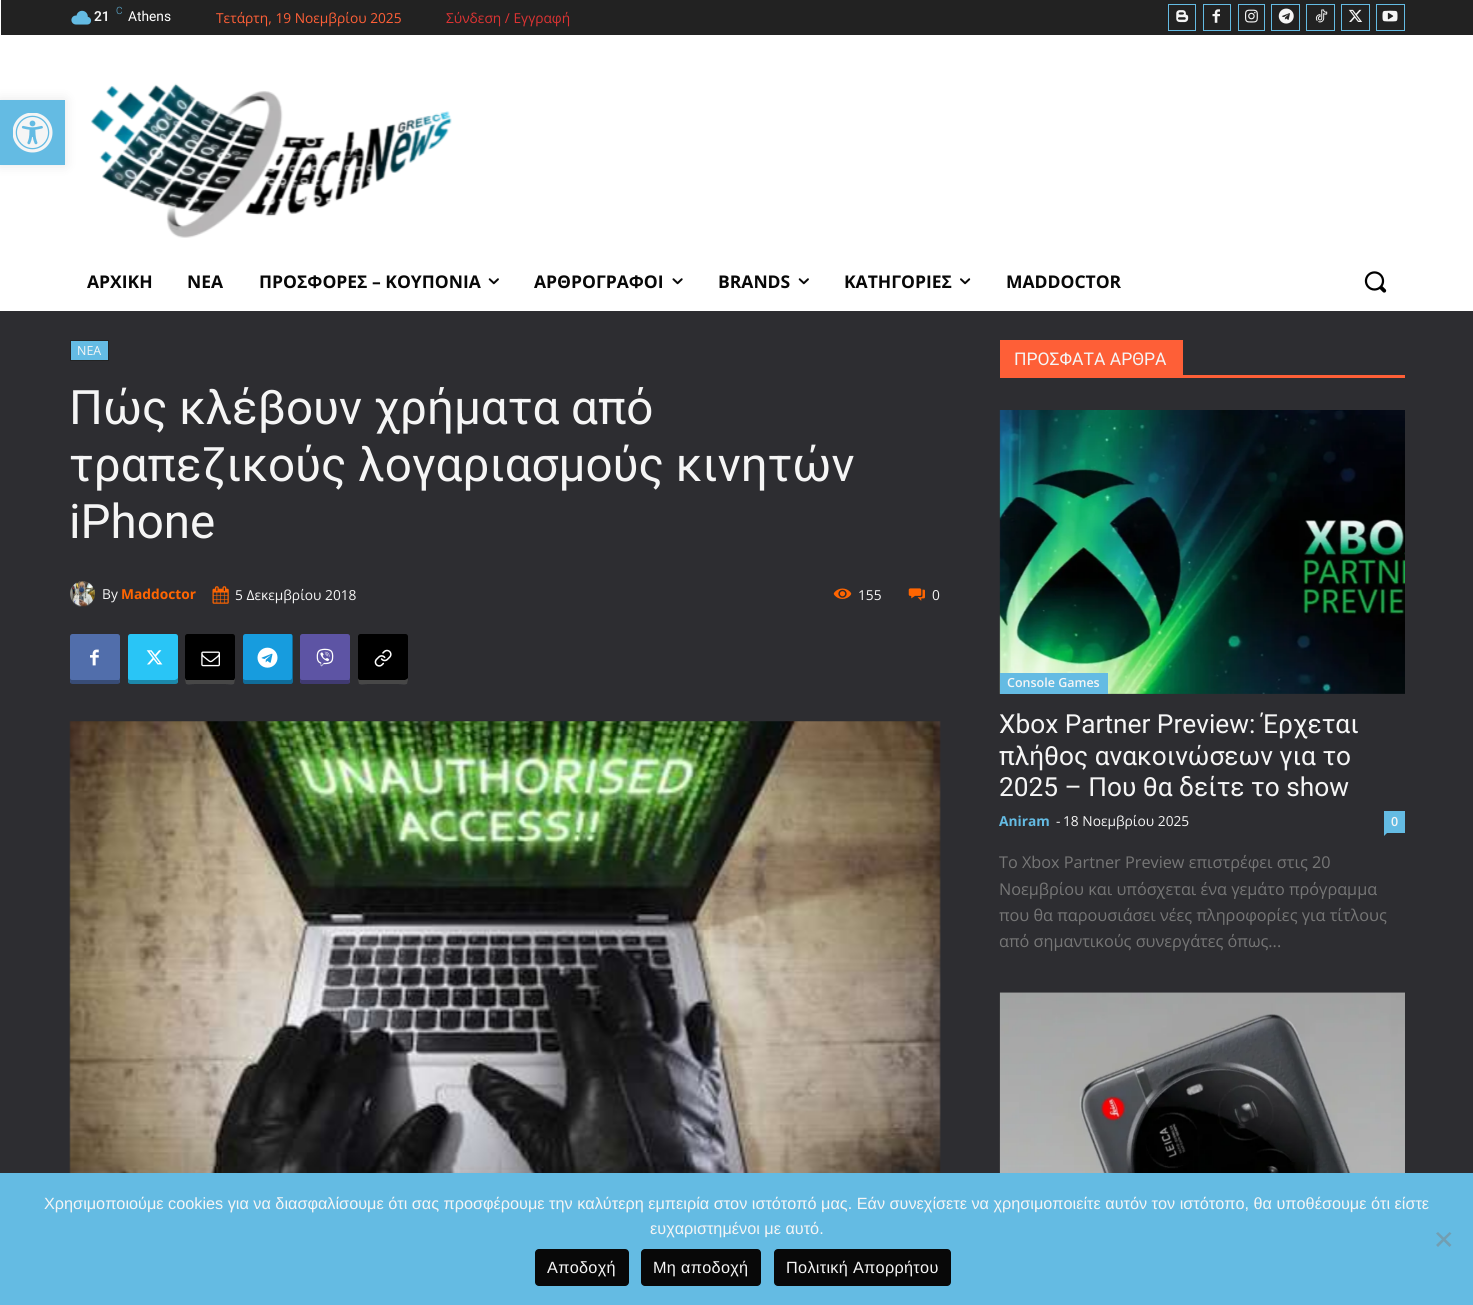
import math
import cairocffi as cairo

surface = cairo.ImageSurface(cairo.FORMAT_RGB24, 1473, 1305)
ctx = cairo.Context(surface)
options = cairo.FontOptions()
options.set_hint_metrics(cairo.HINT_METRICS_OFF)
options.set_hint_style(cairo.HINT_STYLE_NONE)
ctx.set_font_options(options)
ctx.set_miter_limit(4)


def rgb(r, g, b):
    ctx.set_source_rgb(r / 255, g / 255, b / 255)


def face(family, size, italic, bold):
    ctx.select_font_face(family, cairo.FONT_SLANT_ITALIC if italic else cairo.FONT_SLANT_NORMAL, cairo.FONT_WEIGHT_BOLD if bold else cairo.FONT_WEIGHT_NORMAL)
    ctx.set_font_size(size)


def label(x, y, s):
    ctx.move_to(x, y)
    ctx.show_text(s)


def tracked(x, y, s, letter, word):
    ctx.move_to(x, y)
    for ch in s:
        ctx.show_text(ch)
        ctx.rel_move_to(letter + word * (ch == ' '), 0)


def rect(x, y, w, h):
    ctx.rectangle(x, y, w, h)
    ctx.fill()


def rrect(x, y, w, h, r):
    ctx.new_sub_path()
    for i, (u, v) in enumerate([(x + w - r, y + h - r), (x + r, y + h - r), (x + r, y + r), (x + w - r, y + r)]):
        ctx.arc(u, v, r, i * math.pi / 2, (i + 1) * math.pi / 2)
    ctx.close_path()


def soft_shadow(x, y, w, h, r, blur, alpha):
    ctx.push_group_with_content(cairo.CONTENT_ALPHA)
    ctx.set_operator(cairo.OPERATOR_SOURCE)
    for i in range(15, -16, -2):
        e = blur * i / 6
        if min(w, h) + 2 * e > 0:
            ctx.set_source_rgba(0, 0, 0, alpha * math.erfc((i - 1) / 8.5) / 2)
            rrect(x - e, y - e, w + 2 * e, h + 2 * e, max(0, min(r + e + blur * .6, min(w, h) / 2 + e)))
            ctx.fill()
    ctx.mask(ctx.pop_group())


def image(path, x, y, w, h):
    ctx.save()
    ctx.set_source_surface(cairo.ImageSurface.create_from_png(path), x, y)
    ctx.rectangle(x, y, w, h)
    ctx.fill()
    ctx.restore()


rgb(45, 45, 49)
ctx.paint()
rgb(255, 255, 255)
rect(0, 0, 1473, 311)
rgb(0, 0, 0)
soft_shadow(0, 100, 65, 65, 0, 6, 0.1)
rgb(100, 187, 227)
rect(0, 100, 65, 65)
image('image0.png', 13, 113, 40, 40)
rgb(34, 34, 34)
rect(1, 0, 1472, 35)
image('image1.png', 71, 10, 21, 15)
face('Roboto SemiBold', 13.75, 0, 0)
rgb(245, 245, 245)
label(94, 21, '21')
face('Roboto Light', 10, 0, 0)
rgb(100, 187, 227)
label(116, 14, 'C')
face('Roboto', 13.75, 0, 0)
rgb(255, 255, 255)
label(128, 21, 'Athens')
face('Open Sans', 13.75, 0, 0)
rgb(254, 95, 55)
label(216, 23, 'Τετάρτη, 19 Νοεμβρίου 2025')
rgb(221, 51, 51)
label(446, 23, 'Σύνδεση / Εγγραφή')
ctx.rectangle(1168.5, 4.5, 27, 26)
rgb(100, 187, 227)
ctx.set_line_width(1)
ctx.stroke()
image('image2.png', 1176, 10, 13, 13)
ctx.rectangle(1203.5, 4.5, 27, 26)
ctx.stroke()
image('image3.png', 1212, 9, 8, 14)
ctx.rectangle(1238.5, 4.5, 26, 26)
ctx.stroke()
image('image4.png', 1245, 9, 13, 14)
ctx.rectangle(1271.5, 4.5, 28, 26)
ctx.stroke()
image('image5.png', 1278, 8, 16, 16)
ctx.rectangle(1306.5, 4.5, 28, 26)
ctx.stroke()
image('image6.png', 1315, 9, 13, 14)
ctx.rectangle(1341.5, 4.5, 28, 26)
ctx.stroke()
image('image7.png', 1348, 9, 15, 13)
ctx.rectangle(1376.5, 4.5, 28, 26)
ctx.stroke()
image('image8.png', 1382, 10, 16, 12)
image('image9.png', 90, 83, 362, 155)
face('Open Sans', 17.5, 0, 1)
rgb(8, 8, 8)
label(87, 288, 'ΑΡΧΙΚΗ')
label(187, 288, 'ΝΕΑ')
label(259, 288, 'ΠΡΟΣΦΟΡΕΣ – ΚΟΥΠΟΝΙΑ')
image('image10.png', 488, 278, 11, 7)
label(534, 288, 'ΑΡΘΡΟΓΡΑΦΟΙ')
image('image11.png', 672, 278, 11, 7)
label(718, 288, 'BRANDS')
image('image10.png', 798, 278, 11, 7)
label(844, 288, 'ΚΑΤΗΓΟΡΙΕΣ')
image('image12.png', 960, 278, 11, 7)
label(1006, 288, 'MADDOCTOR')
image('image13.png', 1364, 271, 23, 22)
rgb(100, 187, 227)
ctx.rectangle(70.5, 340.5, 38, 20)
ctx.fill_preserve()
rgb(34, 34, 34)
ctx.stroke()
face('Open Sans', 12.5, 0, 0)
rgb(245, 245, 245)
label(77, 355, 'ΝΕΑ')
face('Roboto', 47.5, 0, 0)
label(69, 424, 'Πώς κλέβουν χρήματα από')
label(69, 481, 'τραπεζικούς λογαριασμούς κινητών')
label(69, 538, 'iPhone')
image('image14.png', 70, 581, 25, 26)
face('Open Sans', 13.75, 0, 0)
label(102, 599, 'By')
face('Open Sans', 13.75, 0, 1)
rgb(255, 101, 1)
label(121, 599, 'Maddoctor')
image('image15.png', 212, 586, 17, 18)
face('Open Sans', 13.75, 0, 0)
rgb(245, 245, 245)
label(235, 600, '5 Δεκεμβρίου 2018')
image('image16.png', 833, 588, 19, 11)
label(858, 600, '155')
image('image17.png', 908, 588, 17, 13)
label(932, 600, '0')
rgb(81, 110, 171)
rrect(70, 634, 50, 50, 2.5)
ctx.fill()
ctx.save()
ctx.rectangle(70, 634, 50, 50)
ctx.clip()
ctx.set_source_rgba(0, 0, 0, 0.31)
ctx.new_path()
ctx.move_to(70, 678)
ctx.curve_to(70, 686, 71, 684, 80, 684)
ctx.line_to(110, 684)
ctx.curve_to(119, 684, 120, 686, 120, 678)
ctx.line_to(119, 680)
ctx.line_to(72, 680)
ctx.curve_to(71, 680, 70, 679, 70, 678)
ctx.close_path()
ctx.fill()
ctx.restore()
image('image18.png', 90, 649, 9, 17)
rgb(41, 197, 246)
rrect(128, 634, 50, 50, 2.5)
ctx.fill()
ctx.save()
ctx.rectangle(128, 634, 50, 50)
ctx.clip()
ctx.set_source_rgba(0, 0, 0, 0.31)
ctx.new_path()
ctx.move_to(128, 678)
ctx.curve_to(128, 686, 129, 684, 138, 684)
ctx.line_to(168, 684)
ctx.curve_to(177, 684, 178, 686, 178, 678)
ctx.line_to(177, 679)
ctx.line_to(175, 680)
ctx.line_to(130, 680)
ctx.curve_to(129, 680, 128, 679, 128, 678)
ctx.close_path()
ctx.fill()
ctx.restore()
image('image19.png', 146, 650, 17, 15)
rgb(0, 0, 0)
rrect(185, 634, 50, 50, 2.5)
ctx.fill()
ctx.set_source_rgba(1, 1, 1, 0.28)
ctx.new_path()
ctx.move_to(185, 678)
ctx.curve_to(185, 686, 186, 684, 195, 684)
ctx.line_to(225, 684)
ctx.curve_to(234, 684, 235, 686, 235, 678)
ctx.line_to(234, 680)
ctx.curve_to(232, 680, 188, 680, 186, 680)
ctx.close_path()
ctx.fill()
image('image20.png', 201, 651, 19, 16)
rgb(23, 156, 222)
rrect(243, 634, 50, 50, 2.5)
ctx.fill()
ctx.set_source_rgba(0, 0, 0, 0.31)
ctx.new_path()
ctx.move_to(243, 679)
ctx.line_to(243, 682)
ctx.curve_to(243, 683, 244, 684, 246, 684)
ctx.line_to(290, 684)
ctx.curve_to(292, 684, 293, 683, 293, 682)
ctx.line_to(293, 636)
ctx.curve_to(293, 636, 293, 635, 292, 634)
ctx.line_to(292, 678)
ctx.curve_to(292, 679, 291, 680, 290, 680)
ctx.line_to(245, 680)
ctx.close_path()
ctx.fill()
image('image21.png', 257, 647, 21, 21)
rgb(93, 84, 164)
rrect(300, 634, 50, 50, 2.5)
ctx.fill()
ctx.save()
ctx.rectangle(300, 634, 50, 50)
ctx.clip()
ctx.set_source_rgba(0, 0, 0, 0.31)
ctx.new_path()
ctx.move_to(300, 678)
ctx.curve_to(300, 686, 301, 684, 310, 684)
ctx.line_to(340, 684)
ctx.curve_to(349, 684, 350, 686, 350, 678)
ctx.line_to(349, 680)
ctx.line_to(302, 680)
ctx.curve_to(301, 680, 300, 679, 300, 678)
ctx.close_path()
ctx.fill()
ctx.restore()
image('image22.png', 316, 648, 18, 19)
rgb(0, 0, 0)
rrect(358, 634, 50, 50, 2.5)
ctx.fill()
ctx.set_source_rgba(1, 1, 1, 0.28)
ctx.new_path()
ctx.move_to(358, 678)
ctx.curve_to(358, 686, 359, 684, 368, 684)
ctx.line_to(398, 684)
ctx.curve_to(407, 684, 408, 686, 408, 678)
ctx.line_to(407, 679)
ctx.line_to(405, 680)
ctx.line_to(360, 680)
ctx.curve_to(359, 680, 358, 679, 358, 678)
ctx.close_path()
ctx.fill()
image('image23.png', 374, 649, 18, 18)
image('image24.png', 69, 721, 872, 452)
rgb(254, 95, 55)
rect(1000, 375, 405, 3)
rect(1000, 340, 183, 35)
face('Roboto', 17.5, 0, 0)
rgb(245, 245, 245)
label(1014, 365, 'ΠΡΟΣΦΑΤΑ ΑΡΘΡΑ')
image('image25.png', 999, 410, 406, 284)
rgb(100, 187, 227)
rect(1000, 673, 108, 21)
face('Open Sans SemiBold', 12.5, 0, 0)
rgb(245, 245, 245)
label(1007, 687, 'Console Games')
face('Roboto', 26.25, 0, 0)
label(999, 733, 'Xbox Partner Preview: Έρχεται')
label(999, 765, 'πλήθος ανακοινώσεων για το')
label(999, 796, '2025 – Που θα δείτε το show')
face('Open Sans', 13.75, 0, 1)
rgb(100, 187, 227)
label(999, 826, 'Aniram')
face('Open Sans', 13.75, 0, 0)
rgb(245, 245, 245)
label(1056, 826, '-')
label(1063, 826, '18 Νοεμβρίου 2025')
rgb(100, 187, 227)
rect(1384, 811, 21, 22)
face('Open Sans SemiBold', 12.5, 0, 0)
rgb(245, 245, 245)
label(1391, 826, '0')
rgb(100, 187, 227)
ctx.new_path()
ctx.move_to(1384, 832.5)
ctx.line_to(1387.5, 832.5)
ctx.line_to(1384, 836)
ctx.close_path()
ctx.fill()
face('Open Sans', 16.25, 0, 0)
rgb(118, 118, 118)
label(999, 868, 'Το Xbox Partner Preview επιστρέφει στις 20')
label(999, 895, 'Νοεμβρίου και υπόσχεται ένα γεμάτο πρόγραμμα')
label(999, 921, 'που θα παρουσιάσει νέες πληροφορίες για τίτλους')
label(999, 947, 'από σημαντικούς συνεργάτες όπως...')
image('image26.png', 999, 992, 406, 181)
rgb(100, 187, 227)
rect(0, 1173, 1473, 132)
face('Liberation Sans', 16.25, 0, 0)
rgb(245, 245, 245)
label(44, 1209, 'Χρησιμοποιούμε cookies για να διασφαλίσουμε ότι σας προσφέρουμε την καλύτερη εμπειρία στον ιστότοπό μας. Εάν συνεχίσετε να χρησιμοποιείτε αυτόν τον ιστότοπο, θα υποθέσουμε ότι είστε')
label(650, 1234, 'ευχαριστημένοι με αυτό.')
rgb(114, 158, 178)
ctx.new_path()
ctx.move_to(1449.5, 1232)
ctx.line_to(1451.5, 1233.5)
ctx.line_to(1438, 1247)
ctx.line_to(1436, 1245)
ctx.close_path()
ctx.fill()
ctx.new_path()
ctx.move_to(1436, 1233.5)
ctx.line_to(1438, 1232)
ctx.line_to(1451.5, 1245)
ctx.line_to(1449.5, 1247)
ctx.close_path()
ctx.fill()
rgb(8, 8, 8)
rrect(535, 1249, 94, 37, 4)
ctx.fill()
rgb(245, 245, 245)
tracked(547, 1273, 'Αποδοχή', 0.3, 0)
rgb(8, 8, 8)
rrect(641, 1249, 120, 37, 4)
ctx.fill()
rgb(245, 245, 245)
tracked(653, 1273, 'Μη αποδοχή', 0.3, 0)
rgb(8, 8, 8)
rrect(774, 1249, 177, 37, 4)
ctx.fill()
rgb(245, 245, 245)
tracked(786, 1273, 'Πολιτική Aπορρήτου', 0.3, 0)
surface.write_to_png('render.png')
